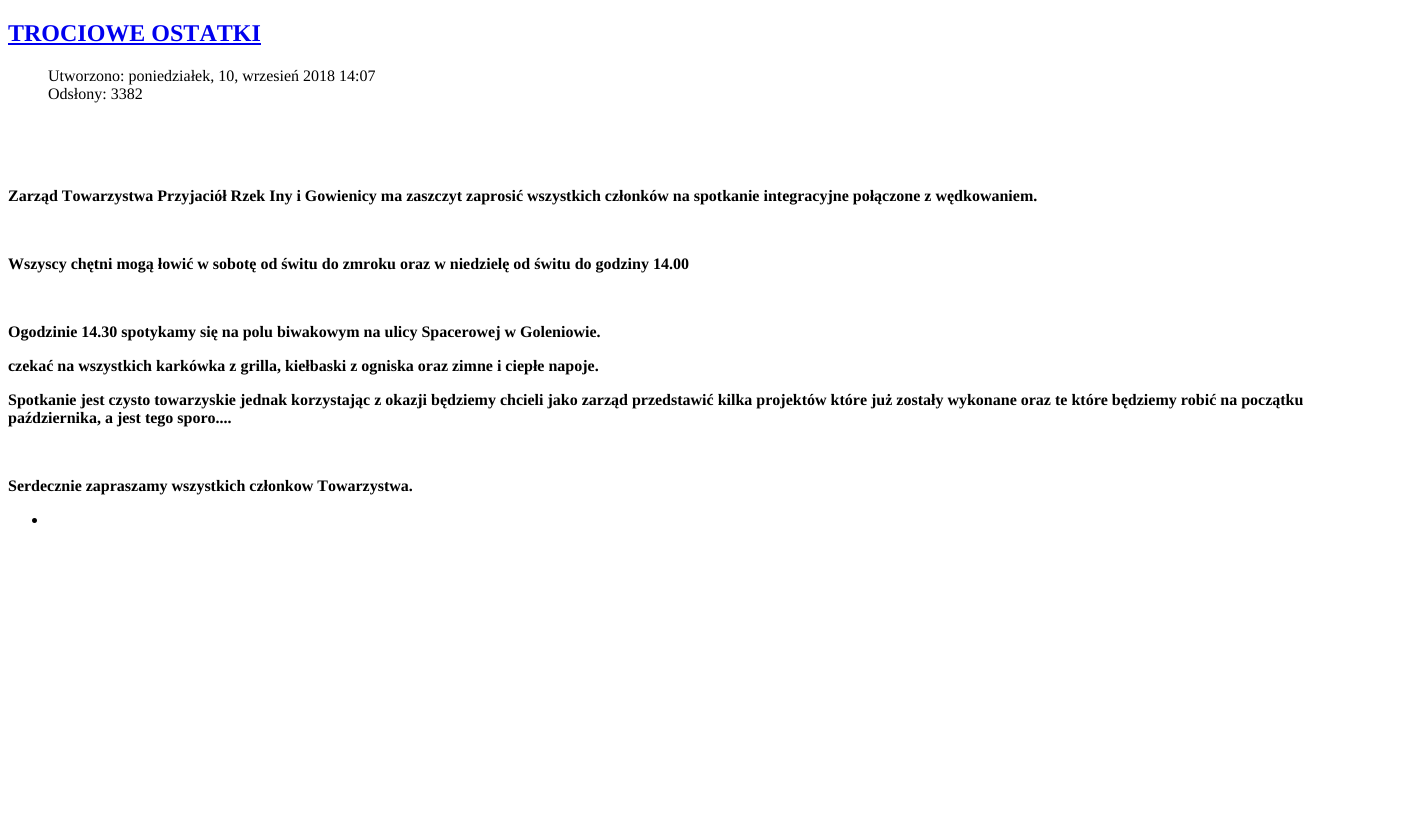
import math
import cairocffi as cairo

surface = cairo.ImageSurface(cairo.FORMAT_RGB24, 1402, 814)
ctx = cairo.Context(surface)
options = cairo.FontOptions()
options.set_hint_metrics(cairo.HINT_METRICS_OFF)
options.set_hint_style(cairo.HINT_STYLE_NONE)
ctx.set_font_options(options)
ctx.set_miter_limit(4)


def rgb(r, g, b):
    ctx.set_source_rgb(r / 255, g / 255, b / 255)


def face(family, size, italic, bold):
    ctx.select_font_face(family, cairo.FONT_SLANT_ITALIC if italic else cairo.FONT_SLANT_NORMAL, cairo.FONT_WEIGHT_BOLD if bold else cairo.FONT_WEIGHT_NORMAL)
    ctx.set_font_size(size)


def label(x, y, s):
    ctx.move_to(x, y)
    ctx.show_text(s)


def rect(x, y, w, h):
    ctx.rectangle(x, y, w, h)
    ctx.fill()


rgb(255, 255, 255)
ctx.paint()
face('Liberation Serif', 24, 0, 1)
rgb(0, 0, 238)
label(8, 41, 'TROCIOWE OSTATKI')
rect(8, 43, 253, 2)
face('Liberation Serif', 16, 0, 0)
rgb(0, 0, 0)
label(48, 81, 'Utworzono: poniedziałek, 10, wrzesień 2018 14:07')
label(48, 99, 'Odsłony: 3382')
face('Liberation Serif', 16, 0, 1)
label(8, 201, 'Zarząd Towarzystwa Przyjaciół Rzek Iny i Gowienicy ma zaszczyt zaprosić wszystkich członków na spotkanie integracyjne połączone z wędkowaniem.')
label(8, 269, 'Wszyscy chętni mogą łowić w sobotę od świtu do zmroku oraz w niedzielę od świtu do godziny 14.00')
label(8, 337, 'Ogodzinie 14.30 spotykamy się na polu biwakowym na ulicy Spacerowej w Goleniowie.')
label(8, 371, 'czekać na wszystkich karkówka z grilla, kiełbaski z ogniska oraz zimne i ciepłe napoje.')
label(8, 405, 'Spotkanie jest czysto towarzyskie jednak korzystając z okazji będziemy chcieli jako zarząd przedstawić kilka projektów które już zostały wykonane oraz te które będziemy robić na początku')
label(8, 423, 'października, a jest tego sporo....')
label(8, 491, 'Serdecznie zapraszamy wszystkich członkow Towarzystwa.')
ctx.new_path()
ctx.arc(34.5, 520.5, 2.5, 0, 2 * math.pi)
ctx.fill()
surface.write_to_png('render.png')
